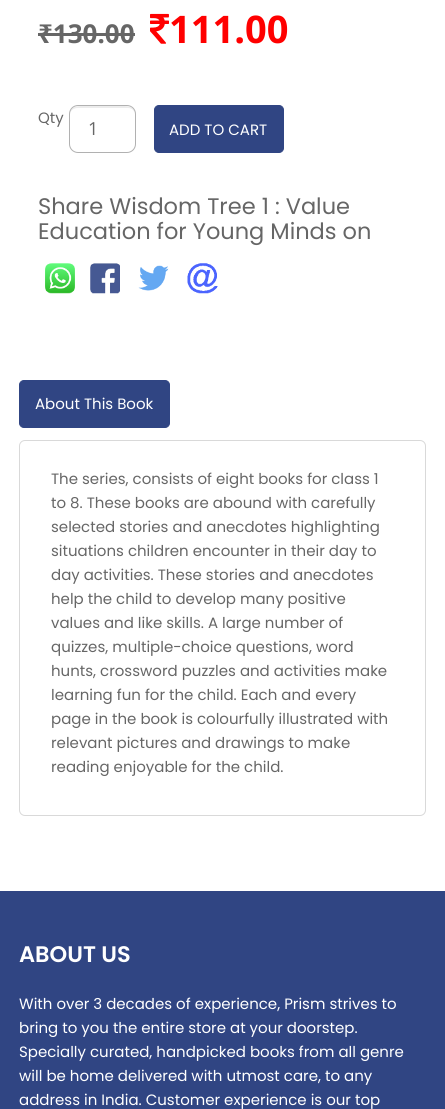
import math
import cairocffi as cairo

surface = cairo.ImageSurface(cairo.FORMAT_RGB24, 445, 1109)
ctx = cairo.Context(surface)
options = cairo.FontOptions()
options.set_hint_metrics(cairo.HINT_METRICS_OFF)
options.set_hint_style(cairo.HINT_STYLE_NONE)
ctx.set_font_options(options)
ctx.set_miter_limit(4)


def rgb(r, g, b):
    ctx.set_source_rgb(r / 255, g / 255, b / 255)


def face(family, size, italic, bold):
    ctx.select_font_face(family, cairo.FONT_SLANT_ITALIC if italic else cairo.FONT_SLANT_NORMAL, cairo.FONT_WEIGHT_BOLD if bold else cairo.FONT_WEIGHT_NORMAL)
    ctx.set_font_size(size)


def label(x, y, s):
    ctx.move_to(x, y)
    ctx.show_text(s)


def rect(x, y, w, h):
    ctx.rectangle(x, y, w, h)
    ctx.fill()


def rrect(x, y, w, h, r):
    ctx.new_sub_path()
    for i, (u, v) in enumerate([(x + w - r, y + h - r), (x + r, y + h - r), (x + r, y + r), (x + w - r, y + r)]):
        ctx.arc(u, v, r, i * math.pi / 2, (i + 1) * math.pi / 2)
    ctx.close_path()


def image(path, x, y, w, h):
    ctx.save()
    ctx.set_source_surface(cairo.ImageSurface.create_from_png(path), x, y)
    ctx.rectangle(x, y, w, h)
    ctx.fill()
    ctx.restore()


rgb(255, 255, 255)
ctx.paint()
face('Noto Sans', 26, 0, 1)
rgb(102, 102, 102)
label(38, 43, '₹130.00')
rect(38, 33, 97, 3)
image('image0.png', 150, 13, 19, 31)
face('Open Sans', 38, 0, 1)
rgb(255, 0, 0)
label(169, 43, '111.00')
face('Poppins', 15, 0, 0)
rgb(102, 102, 102)
label(38, 123, 'Qty')
rgb(236, 236, 236)
ctx.new_path()
ctx.move_to(78, 108)
ctx.line_to(128, 108)
ctx.curve_to(132, 108, 135, 111, 135, 115)
ctx.curve_to(135, 105, 126, 106, 119, 106)
ctx.line_to(86, 106)
ctx.curve_to(79, 106, 70, 105, 70, 115)
ctx.curve_to(70, 111, 73, 108, 78, 108)
ctx.close_path()
ctx.fill()
rrect(69.5, 105.5, 66, 47, 8.5)
rgb(177, 177, 177)
ctx.set_line_width(1)
ctx.stroke()
face('Open Sans', 18, 0, 0)
rgb(102, 102, 102)
label(88, 135, '1')
rgb(48, 69, 131)
rrect(154.5, 105.5, 129, 47, 4.5)
ctx.fill_preserve()
ctx.stroke()
face('Poppins', 15, 0, 0)
rgb(255, 255, 255)
label(169, 135, 'ADD TO CART')
face('Poppins', 22.5, 0, 0)
rgb(102, 102, 102)
label(38, 214, 'Share Wisdom Tree 1 : Value')
label(38, 239, 'Education for Young Minds on')
image('image1.png', 45, 263, 30, 31)
image('image2.png', 90, 263, 30, 31)
image('image3.png', 138, 265, 31, 26)
image('image4.png', 187, 263, 31, 31)
rgb(48, 69, 131)
rrect(19.5, 380.5, 150, 47, 4.5)
ctx.fill_preserve()
ctx.stroke()
face('Poppins', 15, 0, 0)
rgb(255, 255, 255)
label(35, 409, 'About This Book')
rrect(19.5, 440.5, 406, 375, 5.5)
rgb(217, 217, 217)
ctx.stroke()
rgb(102, 102, 102)
label(51, 484, 'The series, consists of eight books for class 1')
label(51, 508, 'to 8. These books are abound with carefully')
label(51, 532, 'selected stories and anecdotes highlighting')
label(51, 556, 'situations children encounter in their day to')
label(51, 580, 'day activities. These stories and anecdotes')
label(51, 604, 'help the child to develop many positive')
label(51, 628, 'values and like skills. A large number of')
label(51, 652, 'quizzes, multiple-choice questions, word')
label(51, 676, 'hunts, crossword puzzles and activities make')
label(51, 700, 'learning fun for the child. Each and every')
label(51, 724, 'page in the book is colourfully illustrated with')
label(51, 748, 'relevant pictures and drawings to make')
label(51, 772, 'reading enjoyable for the child.')
rgb(48, 69, 131)
rect(0, 891, 445, 218)
face('Poppins SemiBold', 22.5, 0, 0)
rgb(255, 255, 255)
label(19, 962, 'ABOUT US')
face('Poppins', 15, 0, 0)
label(19, 1009, 'With over 3 decades of experience, Prism strives to')
label(19, 1033, 'bring to you the entire store at your doorstep.')
label(19, 1057, 'Specially curated, handpicked books from all genre')
label(19, 1081, 'will be home delivered with utmost care, to any')
label(19, 1105, 'address in India. Customer experience is our top')
surface.write_to_png('render.png')
